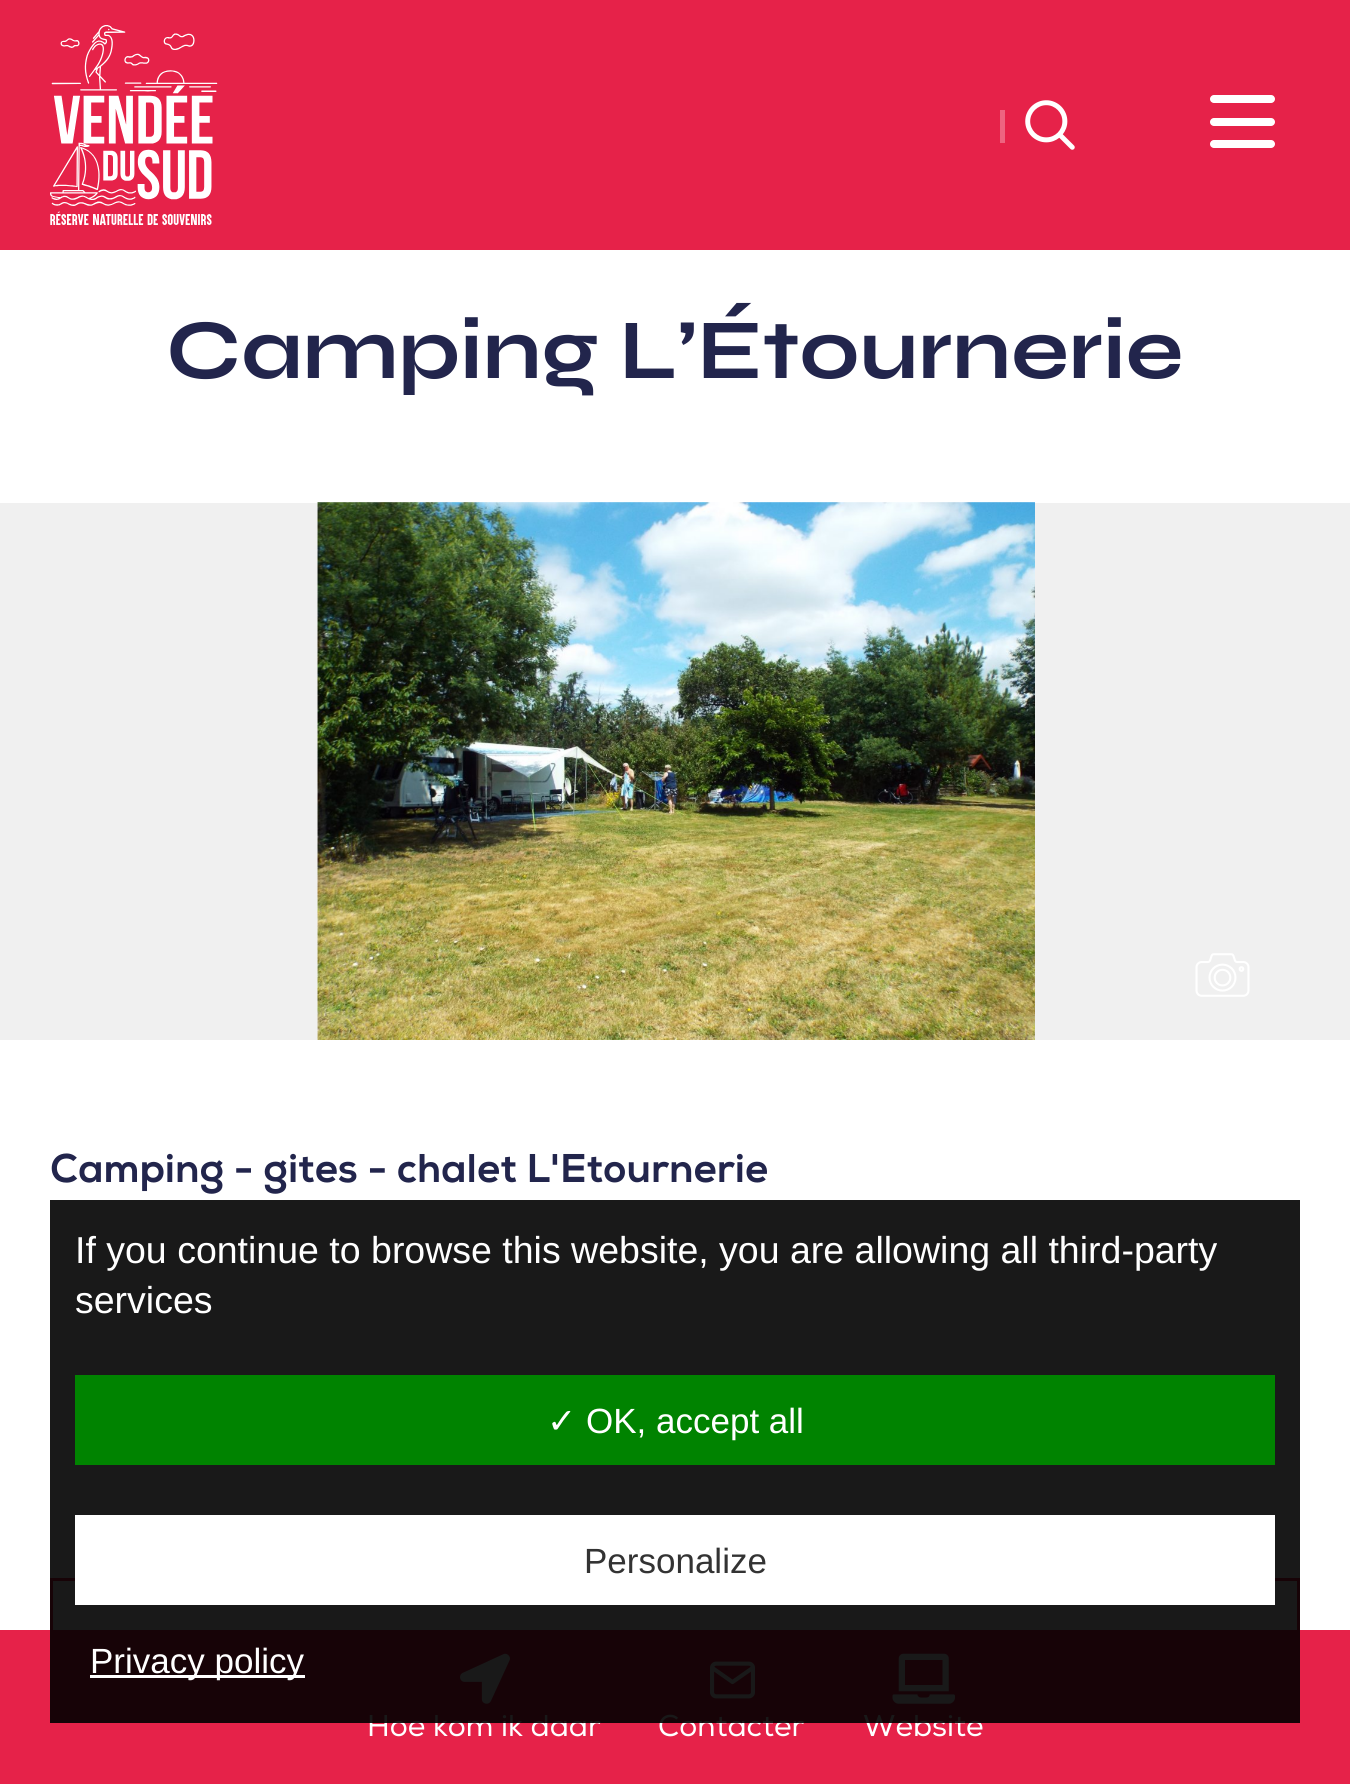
import math
import cairocffi as cairo

surface = cairo.ImageSurface(cairo.FORMAT_RGB24, 1350, 1784)
ctx = cairo.Context(surface)
options = cairo.FontOptions()
options.set_hint_metrics(cairo.HINT_METRICS_OFF)
options.set_hint_style(cairo.HINT_STYLE_NONE)
ctx.set_font_options(options)
ctx.set_miter_limit(4)


def rgb(r, g, b):
    ctx.set_source_rgb(r / 255, g / 255, b / 255)


def face(family, size, italic, bold):
    ctx.select_font_face(family, cairo.FONT_SLANT_ITALIC if italic else cairo.FONT_SLANT_NORMAL, cairo.FONT_WEIGHT_BOLD if bold else cairo.FONT_WEIGHT_NORMAL)
    ctx.set_font_size(size)


def label(x, y, s):
    ctx.move_to(x, y)
    ctx.show_text(s)


def rect(x, y, w, h):
    ctx.rectangle(x, y, w, h)
    ctx.fill()


def rrect(x, y, w, h, r):
    ctx.new_sub_path()
    for i, (u, v) in enumerate([(x + w - r, y + h - r), (x + r, y + h - r), (x + r, y + r), (x + w - r, y + r)]):
        ctx.arc(u, v, r, i * math.pi / 2, (i + 1) * math.pi / 2)
    ctx.close_path()


def image(path, x, y, w, h):
    ctx.save()
    ctx.set_source_surface(cairo.ImageSurface.create_from_png(path), x, y)
    ctx.rectangle(x, y, w, h)
    ctx.fill()
    ctx.restore()


rgb(255, 255, 255)
ctx.paint()
rgb(230, 34, 73)
rect(0, 0, 1350, 250)
image('image0.png', 50, 25, 168, 200)
rgb(238, 100, 128)
rect(1000, 110, 5, 33)
image('image1.png', 1025, 100, 50, 50)
rgb(255, 255, 255)
rrect(1210, 118, 65, 8, 4)
ctx.fill()
rrect(1210, 95, 65, 8, 4)
ctx.fill()
rrect(1210, 140, 65, 8, 4)
ctx.fill()
face('Syne', 85, 0, 1)
rgb(34, 37, 76)
label(166, 378, 'Camping L’Étournerie')
rgb(240, 240, 240)
rect(0, 503, 1350, 537)
image('image2.png', 317, 502, 718, 538)
image('image3.png', 1195, 953, 55, 44)
face('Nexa', 40, 0, 1)
rgb(34, 37, 76)
label(50, 1182, 'Camping - gites - chalet L\'Etournerie')
ctx.rectangle(51.5, 1579.5, 1247, 127)
rgb(230, 34, 73)
ctx.set_line_width(3)
ctx.stroke()
rect(0, 1630, 1350, 154)
image('image4.png', 460, 1653, 50, 51)
face('Nexa', 30, 0, 0)
rgb(255, 255, 255)
label(367, 1736, 'Hoe kom ik daar')
image('image5.png', 710, 1661, 45, 38)
label(658, 1736, 'Contacter')
image('image6.png', 892, 1653, 63, 51)
label(863, 1736, 'Website')
ctx.set_source_rgba(0, 0, 0, 0.9)
rect(50, 1200, 1250, 523)
face('Liberation Sans', 37.5, 0, 0)
rgb(255, 255, 255)
label(75, 1263, 'If you continue to browse this website, you are allowing all third-party')
label(75, 1313, 'services')
rgb(0, 131, 0)
rect(75, 1375, 1200, 90)
face('DejaVu Sans', 35, 0, 0)
rgb(255, 255, 255)
label(547, 1433, '✓')
face('Liberation Sans', 35, 0, 0)
label(586, 1433, 'OK, accept all')
rect(75, 1515, 1200, 90)
rgb(51, 51, 51)
label(584, 1573, 'Personalize')
rgb(255, 255, 255)
rect(90, 1675, 215, 3)
label(90, 1673, 'Privacy policy')
surface.write_to_png('render.png')
